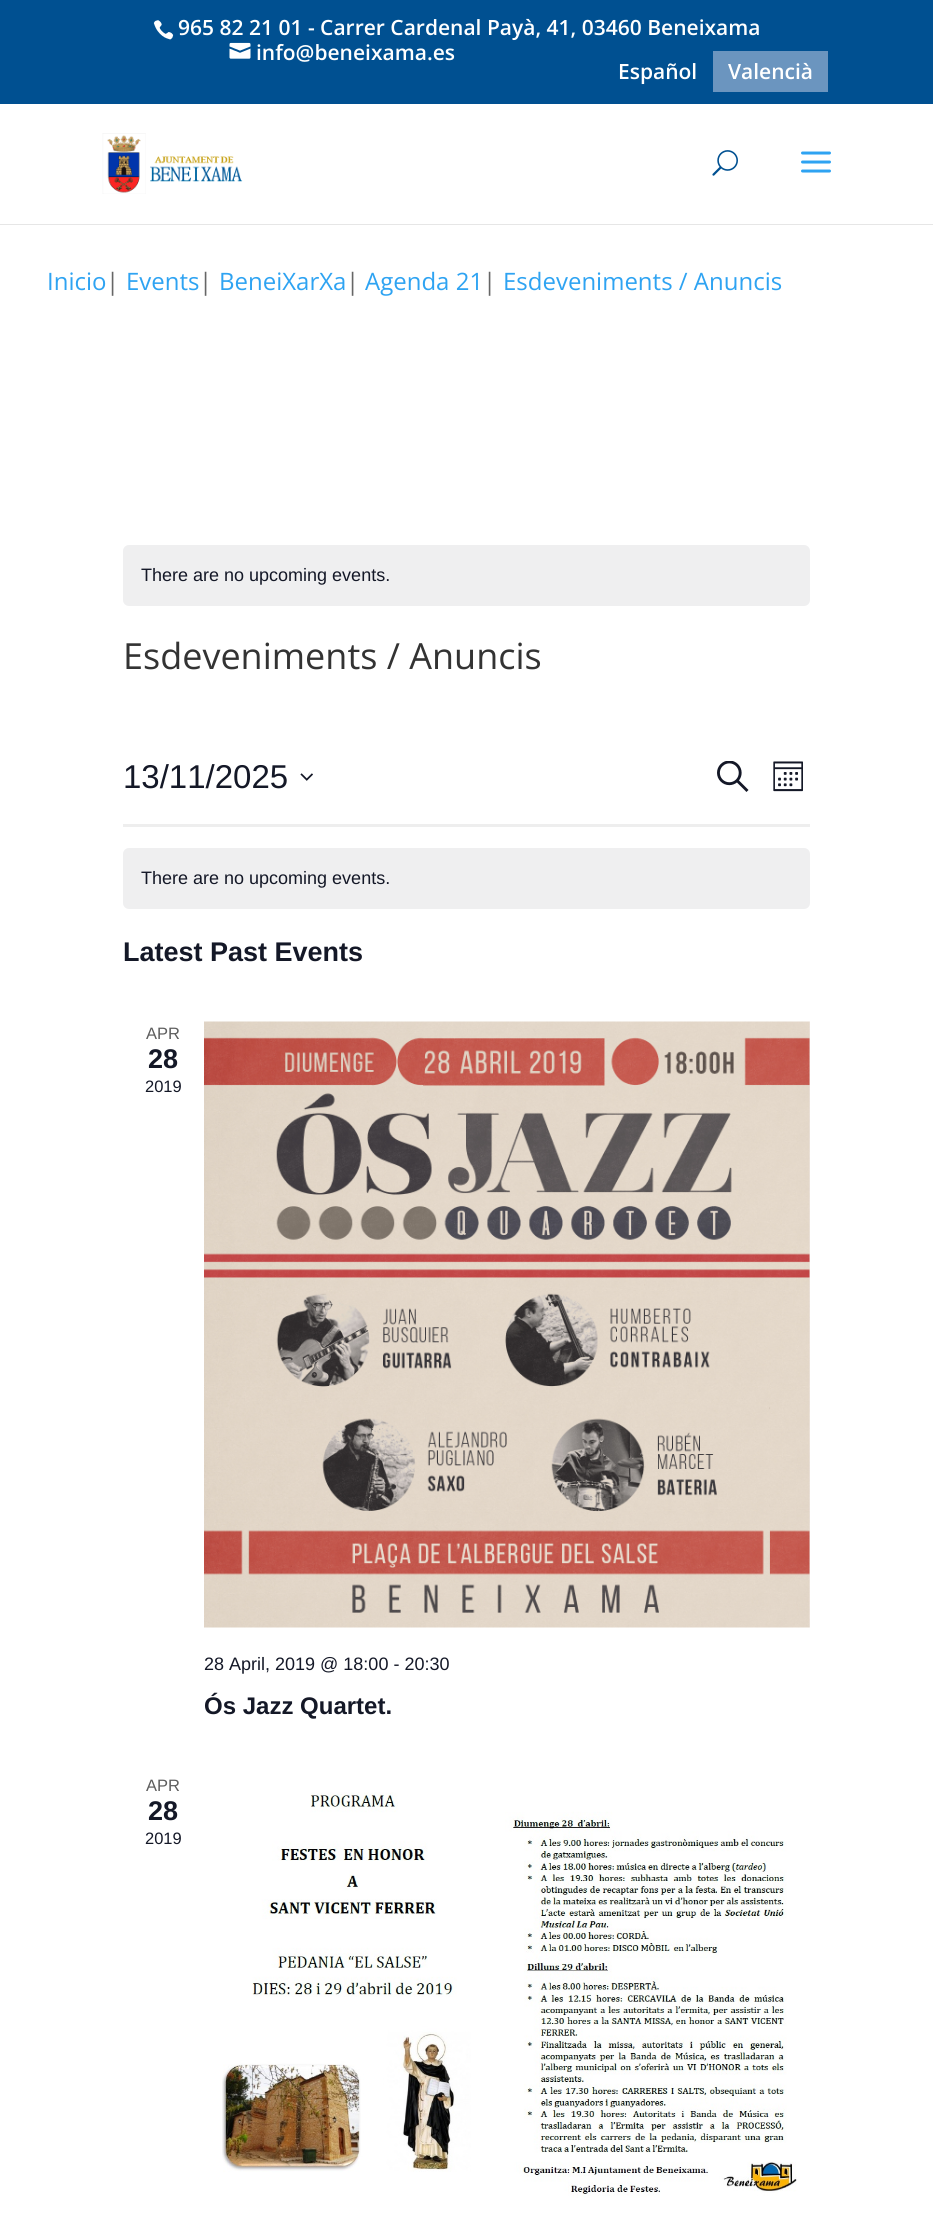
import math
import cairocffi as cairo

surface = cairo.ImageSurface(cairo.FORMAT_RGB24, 933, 2233)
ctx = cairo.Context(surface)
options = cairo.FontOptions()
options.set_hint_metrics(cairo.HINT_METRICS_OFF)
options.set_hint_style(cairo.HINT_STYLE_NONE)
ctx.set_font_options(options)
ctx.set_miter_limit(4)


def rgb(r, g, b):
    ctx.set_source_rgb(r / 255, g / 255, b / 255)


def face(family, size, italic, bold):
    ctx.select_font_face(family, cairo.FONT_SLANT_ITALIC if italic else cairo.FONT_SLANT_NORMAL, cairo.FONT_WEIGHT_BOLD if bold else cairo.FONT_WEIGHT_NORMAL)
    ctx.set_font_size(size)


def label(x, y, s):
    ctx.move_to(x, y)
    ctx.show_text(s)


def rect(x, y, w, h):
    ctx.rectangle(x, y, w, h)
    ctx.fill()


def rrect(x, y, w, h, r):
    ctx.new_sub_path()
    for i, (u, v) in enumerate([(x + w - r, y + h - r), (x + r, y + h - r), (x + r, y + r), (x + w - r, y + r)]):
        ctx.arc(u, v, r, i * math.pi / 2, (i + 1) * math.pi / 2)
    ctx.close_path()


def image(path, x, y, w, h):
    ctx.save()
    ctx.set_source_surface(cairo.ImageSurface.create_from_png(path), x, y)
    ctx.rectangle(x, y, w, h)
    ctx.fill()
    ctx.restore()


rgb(255, 255, 255)
ctx.paint()
rgb(0, 80, 145)
rect(0, 0, 933, 104)
image('image0.png', 153, 20, 21, 20)
face('Open Sans SemiBold', 21, 0, 0)
rgb(255, 255, 255)
label(178, 35, '965 82 21 01 - Carrer Cardenal Payà, 41, 03460 Beneixama')
image('image1.png', 229, 42, 22, 17)
label(256, 60, 'info@beneixama.es')
label(618, 79, 'Español')
rgb(107, 149, 191)
rect(713, 51, 115, 41)
rgb(255, 255, 255)
label(728, 79, 'Valencià')
rgb(230, 230, 230)
rect(0, 224, 933, 1)
image('image2.png', 102, 133, 141, 61)
image('image3.png', 712, 150, 26, 26)
image('image4.png', 801, 151, 30, 22)
face('Open Sans', 24, 0, 0)
rgb(46, 163, 242)
label(47, 290, 'Inicio')
rgb(102, 102, 102)
label(106, 290, '|')
rgb(46, 163, 242)
label(126, 290, 'Events')
rgb(102, 102, 102)
label(199, 290, '|')
rgb(46, 163, 242)
label(219, 290, 'BeneiXarXa')
rgb(102, 102, 102)
label(346, 290, '|')
rgb(46, 163, 242)
label(365, 290, 'Agenda 21')
rgb(102, 102, 102)
label(483, 290, '|')
rgb(46, 163, 242)
label(503, 290, 'Esdeveniments / Anuncis')
rgb(239, 239, 240)
rrect(123, 545, 687, 61, 6)
ctx.fill()
face('Liberation Sans', 18, 0, 0)
rgb(20, 24, 39)
label(141, 581, 'There are no upcoming events.')
face('Open Sans', 36, 0, 0)
rgb(51, 51, 51)
label(123, 669, 'Esdeveniments / Anuncis')
face('Liberation Sans', 33, 0, 0)
rgb(20, 24, 39)
label(123, 788, '13/11/2025')
image('image5.png', 300, 773, 13, 8)
image('image6.png', 717, 761, 32, 31)
image('image7.png', 773, 761, 30, 31)
rgb(238, 238, 238)
rect(123, 824, 687, 3)
rgb(239, 239, 240)
rrect(123, 848, 687, 61, 6)
ctx.fill()
face('Liberation Sans', 18, 0, 0)
rgb(20, 24, 39)
label(141, 884, 'There are no upcoming events.')
face('Liberation Sans', 27, 0, 1)
label(123, 961, 'Latest Past Events')
face('Liberation Sans', 16.5, 0, 0)
rgb(93, 93, 93)
label(146, 1039, 'APR')
face('Liberation Sans', 27, 0, 1)
rgb(20, 24, 39)
label(148, 1068, '28')
face('Liberation Sans', 16.5, 0, 0)
label(145, 1092, '2019')
image('image8.png', 204, 1021, 606, 607)
face('Liberation Sans', 18, 0, 0)
label(204, 1670, '28 April, 2019 @ 18:00 - 20:30')
face('Liberation Sans', 24, 0, 1)
label(204, 1714, 'Ós Jazz Quartet.')
face('Liberation Sans', 16.5, 0, 0)
rgb(93, 93, 93)
label(146, 1791, 'APR')
face('Liberation Sans', 27, 0, 1)
rgb(20, 24, 39)
label(148, 1820, '28')
face('Liberation Sans', 16.5, 0, 0)
label(145, 1844, '2019')
image('image9.png', 222, 1792, 575, 406)
surface.write_to_png('render.png')
